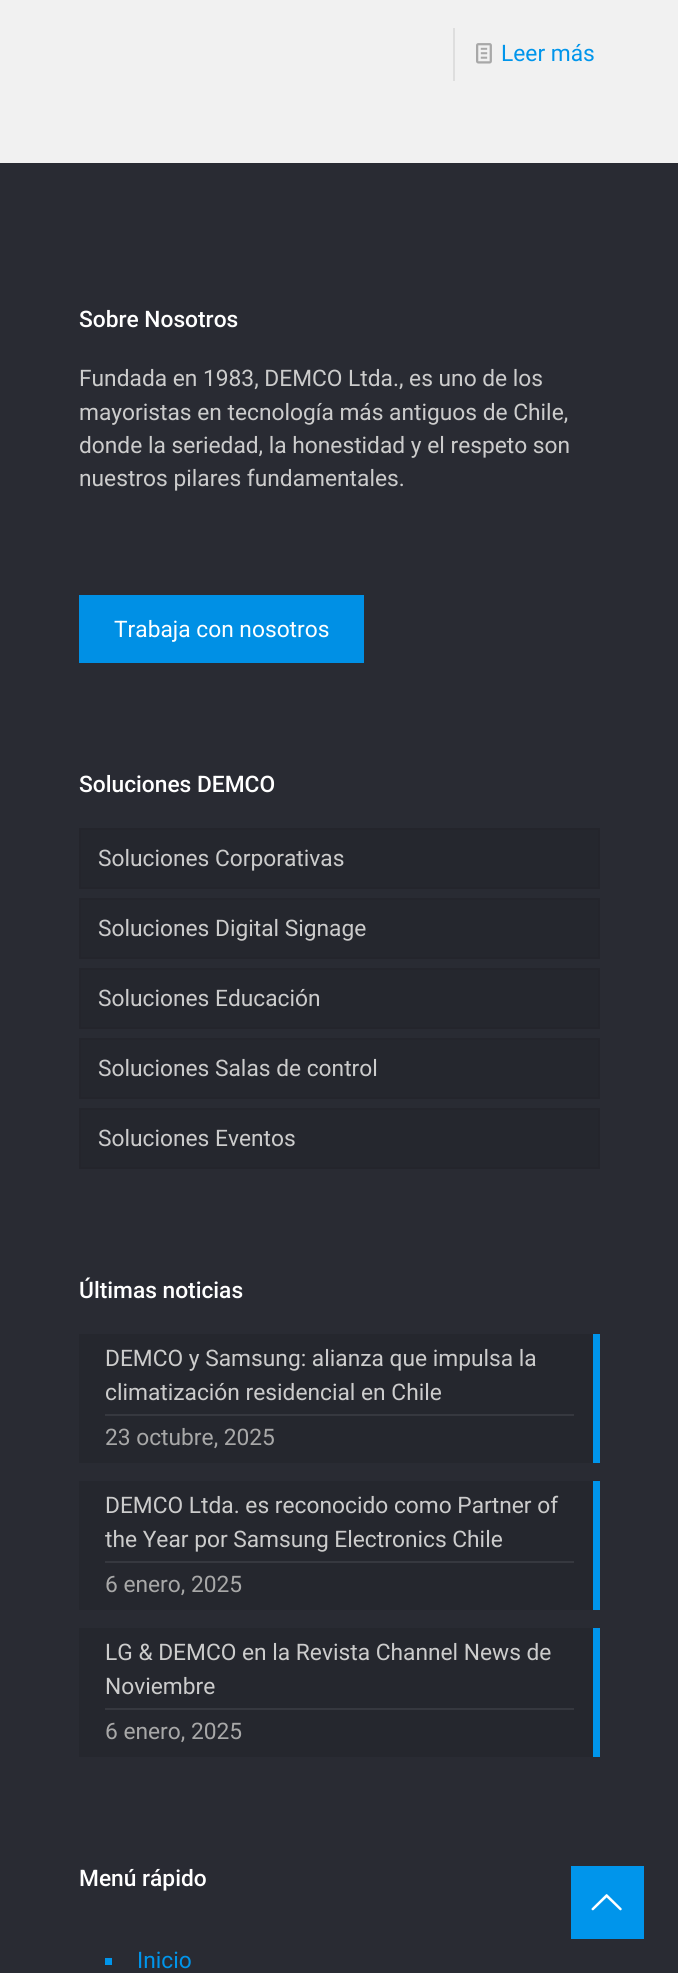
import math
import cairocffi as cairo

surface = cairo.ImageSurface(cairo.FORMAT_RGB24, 678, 1973)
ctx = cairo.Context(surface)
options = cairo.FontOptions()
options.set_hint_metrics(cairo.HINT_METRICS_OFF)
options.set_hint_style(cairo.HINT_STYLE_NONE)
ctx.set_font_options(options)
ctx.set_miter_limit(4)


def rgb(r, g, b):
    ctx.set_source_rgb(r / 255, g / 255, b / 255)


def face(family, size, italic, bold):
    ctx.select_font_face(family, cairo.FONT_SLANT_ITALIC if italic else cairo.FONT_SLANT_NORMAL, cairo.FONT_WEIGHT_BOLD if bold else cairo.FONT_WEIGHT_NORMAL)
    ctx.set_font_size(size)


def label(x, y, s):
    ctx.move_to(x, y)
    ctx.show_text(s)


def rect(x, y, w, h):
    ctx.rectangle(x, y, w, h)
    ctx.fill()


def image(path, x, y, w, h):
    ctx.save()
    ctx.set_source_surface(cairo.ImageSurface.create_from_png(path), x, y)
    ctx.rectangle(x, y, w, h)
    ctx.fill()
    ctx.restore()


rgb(241, 241, 241)
ctx.paint()
rgb(222, 222, 222)
rect(453, 28, 2, 53)
image('image0.png', 476, 43, 16, 21)
face('Roboto', 22.75, 0, 0)
rgb(0, 149, 235)
label(501, 61, 'Leer más')
rgb(41, 43, 51)
rect(0, 163, 678, 1810)
face('Roboto Medium', 22.75, 0, 0)
rgb(255, 255, 255)
label(79, 327, 'Sobre Nosotros')
face('Roboto', 22.75, 0, 0)
rgb(204, 204, 204)
label(79, 386, 'Fundada en 1983, DEMCO Ltda., es uno de los')
label(79, 420, 'mayoristas en tecnología más antiguos de Chile,')
label(79, 453, 'donde la seriedad, la honestidad y el respeto son')
label(79, 486, 'nuestros pilares fundamentales.')
rgb(0, 144, 229)
rect(79, 595, 285, 68)
rgb(255, 255, 255)
label(114, 637, 'Trabaja con nosotros')
face('Roboto Medium', 22.75, 0, 0)
label(79, 792, 'Soluciones DEMCO')
rgb(37, 39, 46)
ctx.rectangle(80, 829, 519, 59)
ctx.fill_preserve()
rgb(36, 37, 44)
ctx.stroke()
face('Roboto', 22.75, 0, 0)
rgb(204, 204, 204)
label(98, 866, 'Soluciones Corporativas')
rgb(37, 39, 46)
ctx.rectangle(80, 899, 519, 59)
ctx.fill_preserve()
rgb(36, 37, 44)
ctx.stroke()
rgb(204, 204, 204)
label(98, 936, 'Soluciones Digital Signage')
rgb(37, 39, 46)
ctx.rectangle(80, 969, 519, 59)
ctx.fill_preserve()
rgb(36, 37, 44)
ctx.stroke()
rgb(204, 204, 204)
label(98, 1006, 'Soluciones Educación')
rgb(37, 39, 46)
ctx.rectangle(80, 1039, 519, 59)
ctx.fill_preserve()
rgb(36, 37, 44)
ctx.stroke()
rgb(204, 204, 204)
label(98, 1076, 'Soluciones Salas de control')
rgb(37, 39, 46)
ctx.rectangle(80, 1109, 519, 59)
ctx.fill_preserve()
rgb(36, 37, 44)
ctx.stroke()
rgb(204, 204, 204)
label(98, 1146, 'Soluciones Eventos')
face('Roboto Medium', 22.75, 0, 0)
rgb(255, 255, 255)
label(79, 1298, 'Últimas noticias')
rgb(37, 39, 46)
rect(79, 1334, 514, 129)
rgb(54, 56, 63)
rect(105, 1414, 469, 2)
face('Roboto', 22.75, 0, 0)
rgb(204, 204, 204)
label(105, 1366, 'DEMCO y Samsung: alianza que impulsa la')
label(105, 1400, 'climatización residencial en Chile')
rgb(0, 149, 235)
rect(593, 1334, 7, 129)
rgb(168, 168, 168)
label(105, 1445, '23 octubre, 2025')
rgb(37, 39, 46)
rect(79, 1481, 514, 129)
rgb(54, 56, 63)
rect(105, 1561, 469, 2)
rgb(204, 204, 204)
label(105, 1513, 'DEMCO Ltda. es reconocido como Partner of')
label(105, 1547, 'the Year por Samsung Electronics Chile')
rgb(0, 149, 235)
rect(593, 1481, 7, 129)
rgb(168, 168, 168)
label(105, 1592, '6 enero, 2025')
rgb(37, 39, 46)
rect(79, 1628, 514, 129)
rgb(54, 56, 63)
rect(105, 1708, 469, 2)
rgb(204, 204, 204)
label(105, 1660, 'LG & DEMCO en la Revista Channel News de')
label(105, 1694, 'Noviembre')
rgb(0, 149, 235)
rect(593, 1628, 7, 129)
rgb(168, 168, 168)
label(105, 1739, '6 enero, 2025')
face('Roboto Medium', 22.75, 0, 0)
rgb(255, 255, 255)
label(79, 1886, 'Menú rápido')
rgb(0, 149, 235)
rect(105, 1958, 7, 7)
face('Roboto', 22.75, 0, 0)
label(137, 1968, 'Inicio')
rect(571, 1866, 73, 73)
image('image1.png', 591, 1894, 31, 17)
surface.write_to_png('render.png')
